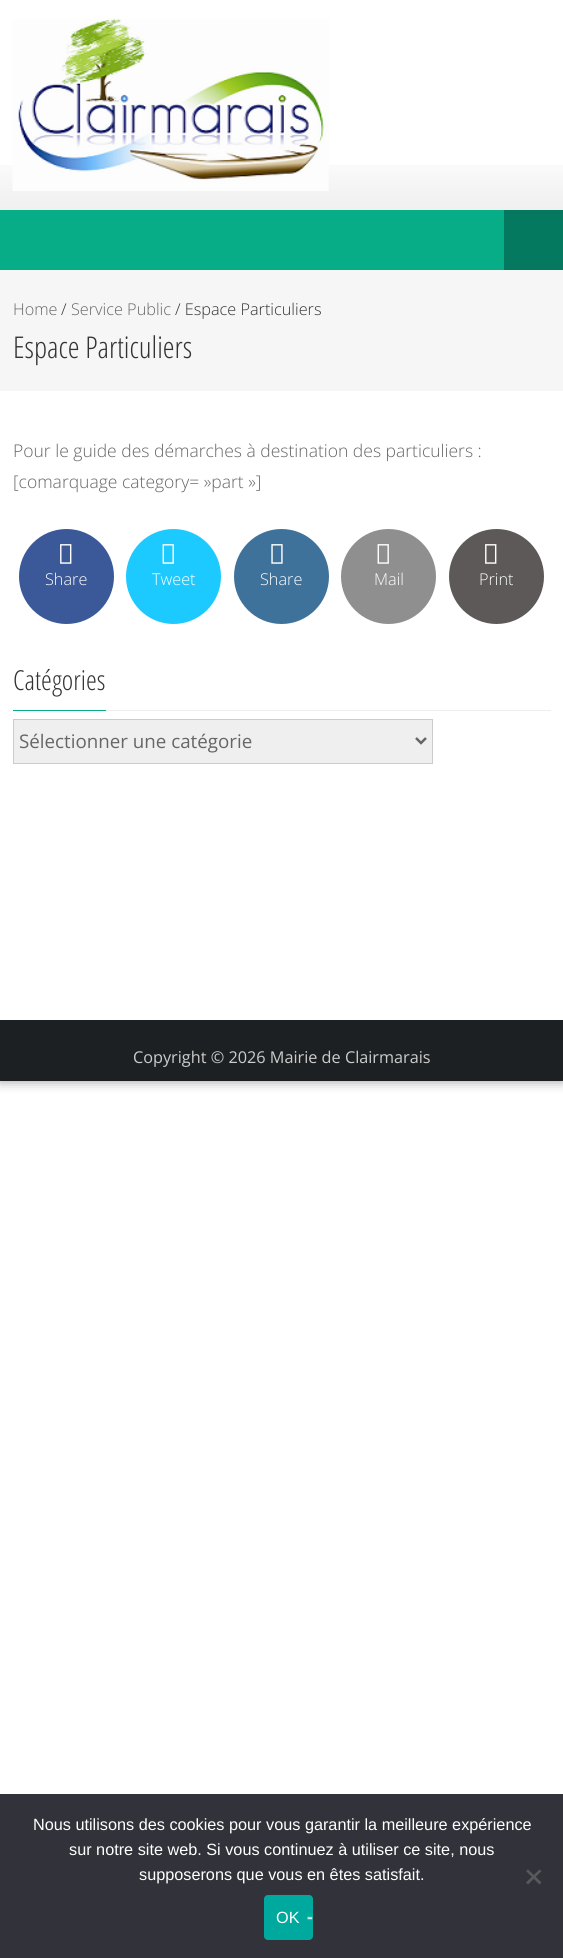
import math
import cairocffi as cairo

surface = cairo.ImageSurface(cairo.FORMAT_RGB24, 563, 1958)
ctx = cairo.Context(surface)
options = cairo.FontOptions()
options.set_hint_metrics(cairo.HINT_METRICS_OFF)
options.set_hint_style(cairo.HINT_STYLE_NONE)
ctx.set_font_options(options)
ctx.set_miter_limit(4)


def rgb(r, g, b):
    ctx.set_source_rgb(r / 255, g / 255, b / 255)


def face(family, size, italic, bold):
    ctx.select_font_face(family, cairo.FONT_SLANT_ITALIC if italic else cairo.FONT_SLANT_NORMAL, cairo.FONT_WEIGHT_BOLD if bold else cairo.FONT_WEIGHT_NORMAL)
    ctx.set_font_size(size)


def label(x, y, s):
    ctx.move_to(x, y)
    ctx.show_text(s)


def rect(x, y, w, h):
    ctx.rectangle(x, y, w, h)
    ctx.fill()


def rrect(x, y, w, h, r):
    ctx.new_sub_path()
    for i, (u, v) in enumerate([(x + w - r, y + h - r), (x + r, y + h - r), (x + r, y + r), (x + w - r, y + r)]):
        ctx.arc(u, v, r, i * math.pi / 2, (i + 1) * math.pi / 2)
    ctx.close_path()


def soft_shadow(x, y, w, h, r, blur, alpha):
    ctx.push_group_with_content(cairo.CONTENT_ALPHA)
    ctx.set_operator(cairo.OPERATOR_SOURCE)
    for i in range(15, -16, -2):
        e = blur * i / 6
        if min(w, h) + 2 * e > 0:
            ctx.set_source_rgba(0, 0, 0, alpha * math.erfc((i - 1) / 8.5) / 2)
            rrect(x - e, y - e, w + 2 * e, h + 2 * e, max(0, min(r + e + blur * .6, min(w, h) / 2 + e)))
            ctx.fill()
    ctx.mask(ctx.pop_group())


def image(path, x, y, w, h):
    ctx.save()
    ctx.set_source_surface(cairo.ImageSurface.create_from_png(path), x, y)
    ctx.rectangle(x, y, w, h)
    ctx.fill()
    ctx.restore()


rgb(255, 255, 255)
ctx.paint()
ctx.save()
ctx.rectangle(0, 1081, 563, 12)
ctx.clip()
rgb(153, 153, 153)
soft_shadow(0, 0, 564, 1081, 0, 6, 1)
ctx.restore()
image('image0.png', 0, 165, 563, 45)
image('image1.png', 12, 18, 317, 173)
rgb(7, 173, 135)
rect(0, 210, 504, 60)
rgb(5, 121, 95)
rect(504, 210, 59, 60)
rgb(246, 246, 246)
rect(0, 270, 563, 121)
face('Open Sans Light', 16.25, 0, 0)
rgb(102, 102, 102)
label(13, 315, 'Home')
rgb(51, 51, 51)
label(61, 315, '/')
rgb(102, 102, 102)
label(71, 315, 'Service Public')
rgb(51, 51, 51)
label(175, 315, '/ Espace Particuliers')
face('Open Sans Condensed Light', 30, 0, 0)
label(13, 358, 'Espace Particuliers')
face('Open Sans Light', 17.5, 0, 0)
rgb(102, 102, 102)
label(13, 457, 'Pour le guide des démarches à destination des particuliers :')
label(13, 488, '[comarquage category= »part »]')
rgb(59, 89, 152)
ctx.new_path()
ctx.arc(66.5, 576.5, 47.5, 0, 2 * math.pi)
ctx.fill()
image('image2.png', 60, 544, 12, 20)
face('Open Sans Light', 16.25, 0, 0)
rgb(255, 255, 255)
label(45, 585, 'Share')
rgb(29, 202, 255)
ctx.new_path()
ctx.arc(173.5, 576.5, 47.5, 0, 2 * math.pi)
ctx.fill()
image('image3.png', 162, 544, 12, 20)
rgb(255, 255, 255)
label(152, 585, 'Tweet')
rgb(63, 114, 155)
ctx.new_path()
ctx.arc(281.5, 576.5, 47.5, 0, 2 * math.pi)
ctx.fill()
image('image4.png', 271, 544, 12, 20)
rgb(255, 255, 255)
label(260, 585, 'Share')
rgb(143, 143, 143)
ctx.new_path()
ctx.arc(388.5, 576.5, 47.5, 0, 2 * math.pi)
ctx.fill()
image('image5.png', 377, 544, 12, 20)
rgb(255, 255, 255)
label(374, 585, 'Mail')
rgb(94, 89, 89)
ctx.new_path()
ctx.arc(496.5, 576.5, 47.5, 0, 2 * math.pi)
ctx.fill()
image('image6.png', 485, 544, 12, 20)
rgb(255, 255, 255)
label(479, 585, 'Print')
rgb(238, 238, 238)
rect(106, 710, 445, 1)
face('Open Sans Condensed Light', 27.5, 0, 0)
rgb(51, 51, 51)
label(13, 690, 'Catégories')
rgb(7, 173, 135)
rect(13, 710, 93, 1)
rgb(239, 239, 239)
ctx.rectangle(13.5, 719.5, 419, 44)
ctx.fill_preserve()
rgb(204, 204, 204)
ctx.set_line_width(1)
ctx.stroke()
ctx.new_path()
ctx.move_to(416, 738)
ctx.line_to(421, 743)
ctx.line_to(426, 738)
rgb(102, 102, 102)
ctx.set_line_width(2.5)
ctx.stroke()
face('Open Sans', 18.75, 0, 0)
label(19, 748, 'Sélectionner une catégorie')
rgb(29, 32, 34)
rect(0, 1020, 563, 61)
face('Open Sans', 16.25, 0, 0)
rgb(204, 204, 204)
label(133, 1063, 'Copyright © 2026 Mairie de Clairmarais')
rgb(50, 50, 58)
rect(0, 1794, 563, 164)
face('Liberation Sans', 16.25, 0, 0)
rgb(255, 255, 255)
label(33, 1830, 'Nous utilisons des cookies pour vous garantir la meilleure expérience')
label(69, 1855, 'sur notre site web. Si vous continuez à utiliser ce site, nous')
label(139, 1880, 'supposerons que vous en êtes satisfait.')
rgb(89, 89, 93)
ctx.new_path()
ctx.move_to(539.5, 1869.5)
ctx.line_to(541.5, 1871)
ctx.line_to(528, 1884.5)
ctx.line_to(526, 1882.5)
ctx.close_path()
ctx.fill()
ctx.new_path()
ctx.move_to(526, 1871)
ctx.line_to(528, 1869.5)
ctx.line_to(541.5, 1882.5)
ctx.line_to(539.5, 1884.5)
ctx.close_path()
ctx.fill()
rgb(0, 169, 157)
rrect(264, 1895, 49, 45, 4)
ctx.fill()
image('image7.png', 307, 1916, 6, 5)
rgb(255, 255, 255)
label(276, 1923, 'OK')
surface.write_to_png('render.png')
